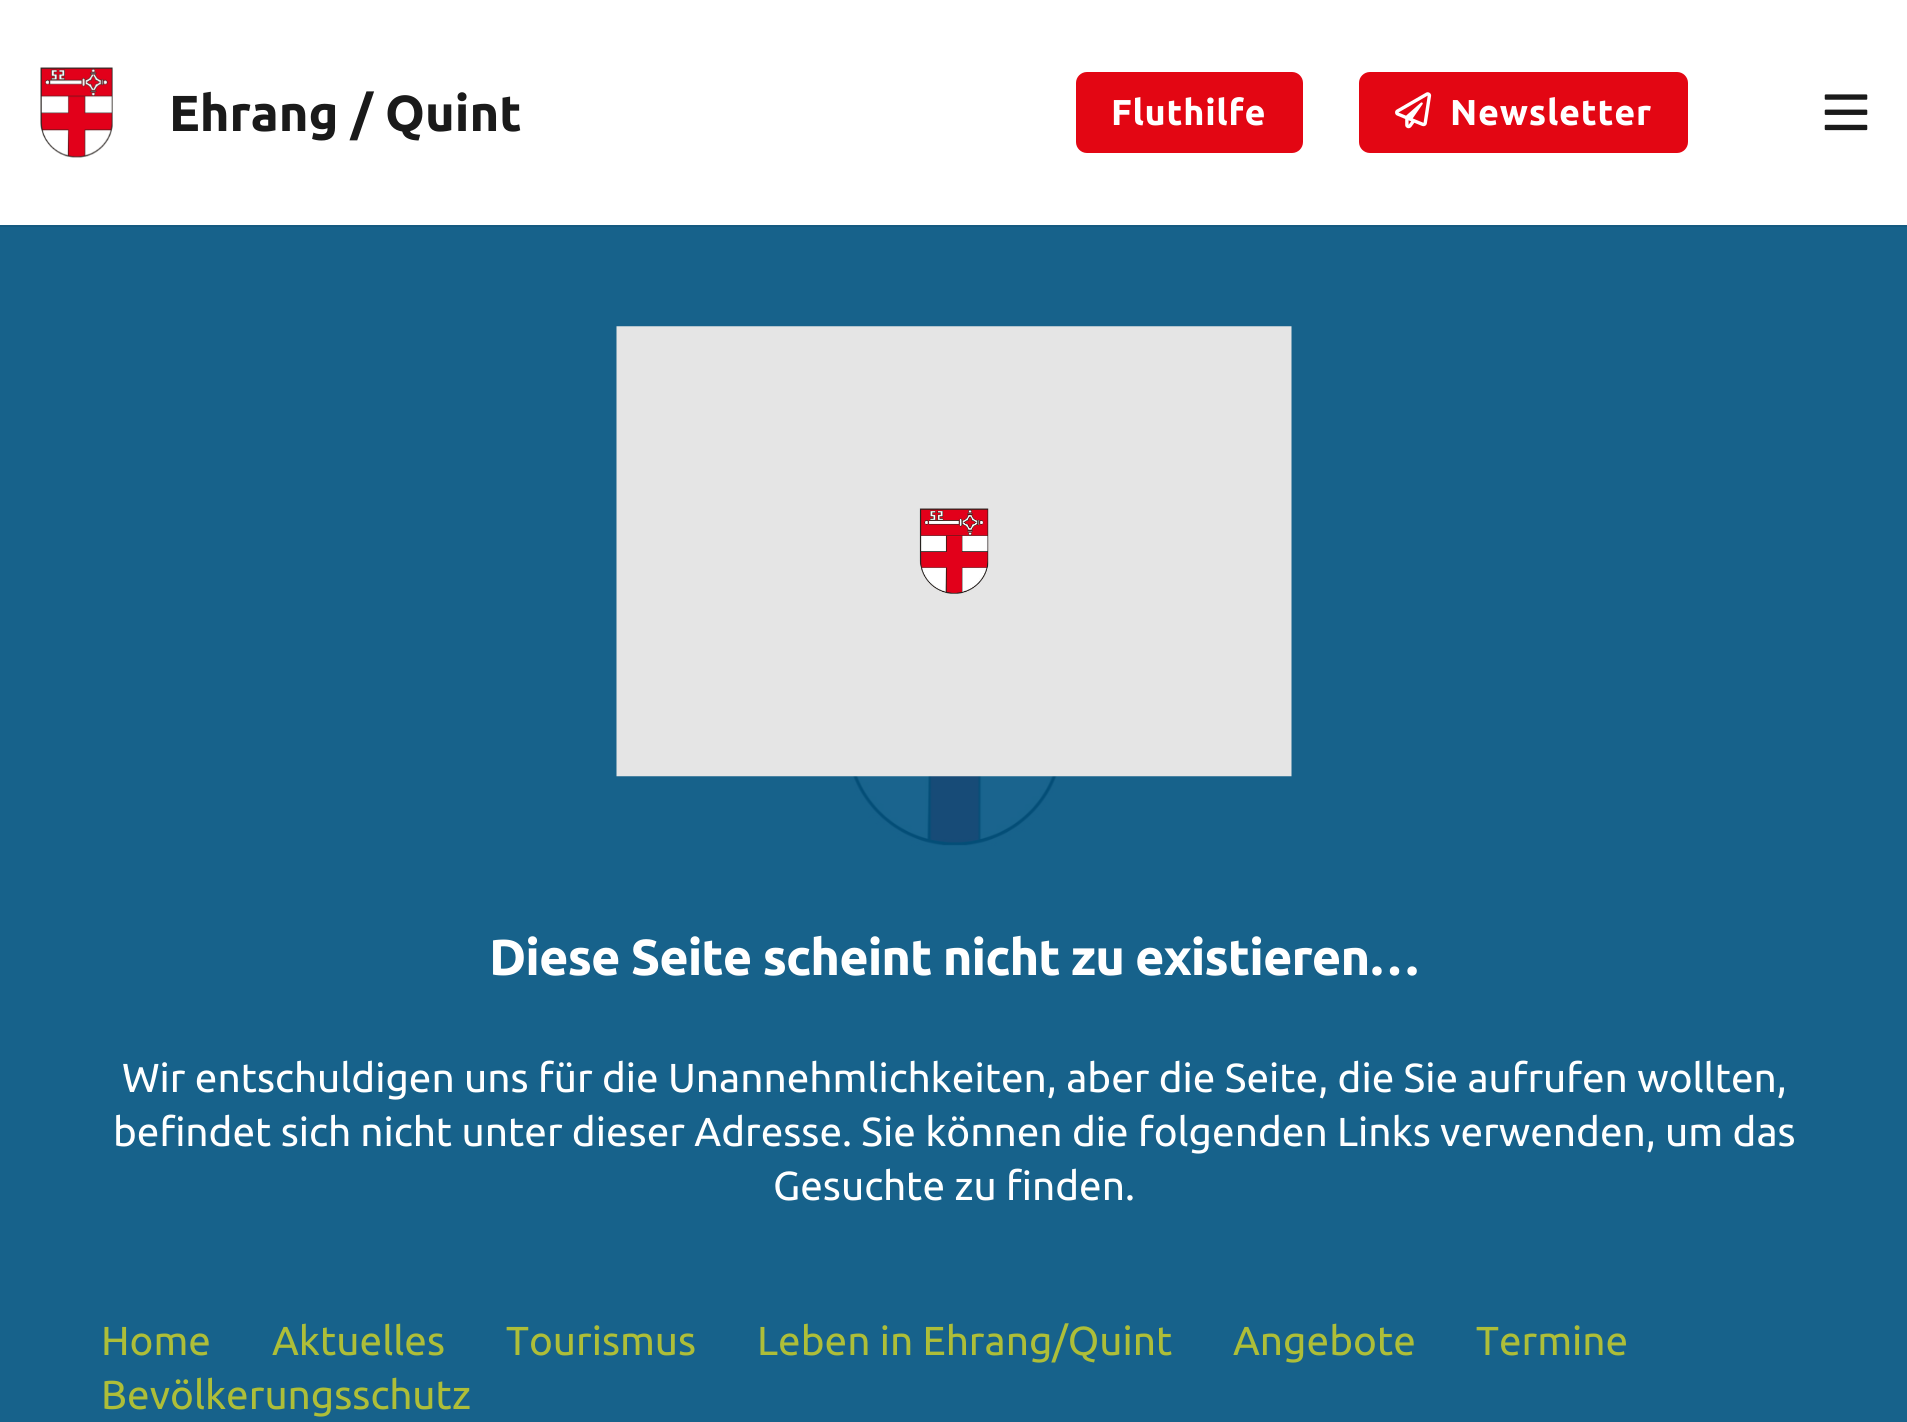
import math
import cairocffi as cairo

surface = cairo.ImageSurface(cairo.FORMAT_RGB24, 1907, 1422)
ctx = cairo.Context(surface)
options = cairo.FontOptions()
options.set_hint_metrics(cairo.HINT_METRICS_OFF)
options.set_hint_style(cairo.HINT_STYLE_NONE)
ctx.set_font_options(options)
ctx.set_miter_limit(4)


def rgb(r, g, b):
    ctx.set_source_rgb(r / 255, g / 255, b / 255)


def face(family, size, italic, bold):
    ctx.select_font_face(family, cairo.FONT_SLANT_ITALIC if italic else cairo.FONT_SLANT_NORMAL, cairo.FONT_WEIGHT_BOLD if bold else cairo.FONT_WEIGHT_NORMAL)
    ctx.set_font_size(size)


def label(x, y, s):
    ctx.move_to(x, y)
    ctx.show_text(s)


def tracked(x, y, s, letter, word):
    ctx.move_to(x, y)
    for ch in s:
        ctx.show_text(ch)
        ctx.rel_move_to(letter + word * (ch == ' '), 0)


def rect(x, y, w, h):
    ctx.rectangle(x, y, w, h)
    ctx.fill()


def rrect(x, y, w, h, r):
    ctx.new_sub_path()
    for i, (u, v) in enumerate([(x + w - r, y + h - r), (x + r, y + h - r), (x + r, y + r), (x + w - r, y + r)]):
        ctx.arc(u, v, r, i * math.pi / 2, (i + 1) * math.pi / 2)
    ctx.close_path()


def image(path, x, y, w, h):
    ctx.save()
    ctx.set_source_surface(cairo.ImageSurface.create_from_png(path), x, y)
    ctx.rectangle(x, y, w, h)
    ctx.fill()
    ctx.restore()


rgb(255, 255, 255)
ctx.paint()
rgb(21, 90, 128)
rect(0, 225, 1907, 2)
image('image0.png', 40, 67, 73, 91)
face('Ubuntu', 50.6, 0, 1)
rgb(26, 26, 26)
label(169, 131, 'Ehrang / Quint')
rgb(227, 6, 19)
rrect(1076, 72, 227, 81, 11)
ctx.fill()
face('Ubuntu', 36, 0, 1)
rgb(255, 255, 255)
tracked(1111, 125, 'Fluthilfe', 0.75, 0)
rgb(227, 6, 19)
rrect(1359, 72, 329, 81, 11)
ctx.fill()
image('image1.png', 1395, 92, 37, 37)
rgb(255, 255, 255)
tracked(1450, 125, 'Newsletter', 0.75, 0)
image('image2.png', 1824, 94, 44, 37)
image('image3.png', 0, 227, 1907, 1195)
image('image4.png', 616, 326, 676, 451)
face('Ubuntu', 50.6, 0, 1)
tracked(489, 975, 'Diese Seite scheint nicht zu existieren…', -1, 0)
face('Ubuntu', 40.5, 0, 0)
label(122, 1092, 'Wir entschuldigen uns für die Unannehmlichkeiten, aber die Seite, die Sie aufrufen wollten,')
label(113, 1146, 'befindet sich nicht unter dieser Adresse. Sie können die folgenden Links verwenden, um das')
label(773, 1200, 'Gesuchte zu finden.')
rgb(174, 190, 56)
label(101, 1355, 'Home')
label(272, 1355, 'Aktuelles')
label(506, 1355, 'Tourismus')
label(757, 1355, 'Leben in Ehrang/Quint')
label(1233, 1355, 'Angebote')
label(1476, 1355, 'Termine')
label(101, 1409, 'Bevölkerungsschutz')
surface.write_to_png('render.png')
